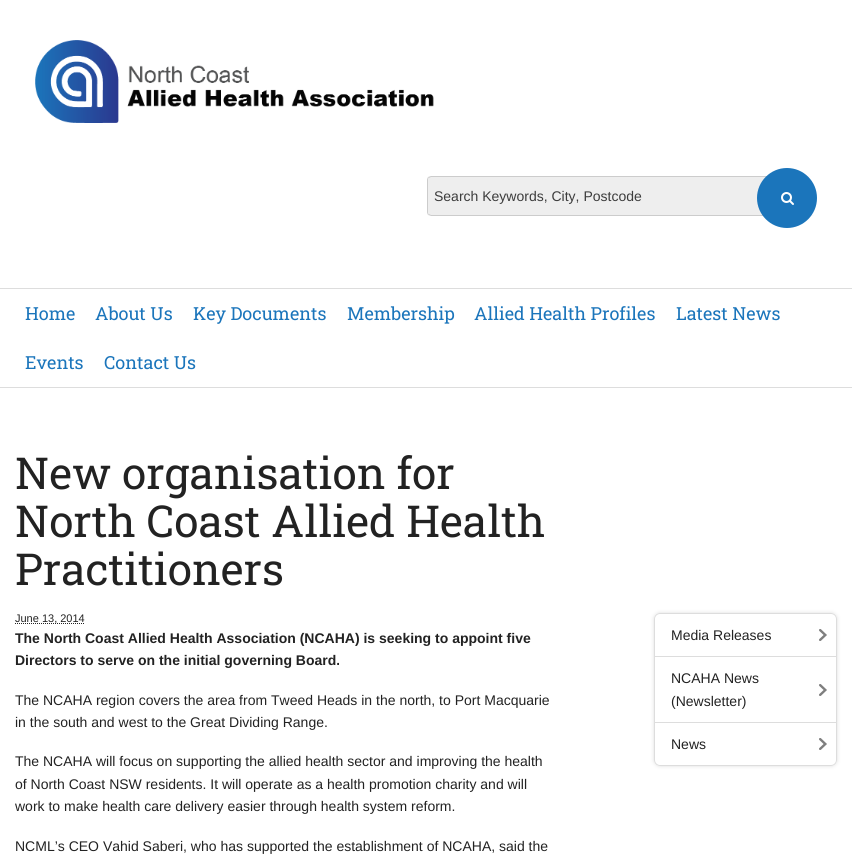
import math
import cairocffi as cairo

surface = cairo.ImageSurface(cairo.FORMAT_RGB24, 852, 861)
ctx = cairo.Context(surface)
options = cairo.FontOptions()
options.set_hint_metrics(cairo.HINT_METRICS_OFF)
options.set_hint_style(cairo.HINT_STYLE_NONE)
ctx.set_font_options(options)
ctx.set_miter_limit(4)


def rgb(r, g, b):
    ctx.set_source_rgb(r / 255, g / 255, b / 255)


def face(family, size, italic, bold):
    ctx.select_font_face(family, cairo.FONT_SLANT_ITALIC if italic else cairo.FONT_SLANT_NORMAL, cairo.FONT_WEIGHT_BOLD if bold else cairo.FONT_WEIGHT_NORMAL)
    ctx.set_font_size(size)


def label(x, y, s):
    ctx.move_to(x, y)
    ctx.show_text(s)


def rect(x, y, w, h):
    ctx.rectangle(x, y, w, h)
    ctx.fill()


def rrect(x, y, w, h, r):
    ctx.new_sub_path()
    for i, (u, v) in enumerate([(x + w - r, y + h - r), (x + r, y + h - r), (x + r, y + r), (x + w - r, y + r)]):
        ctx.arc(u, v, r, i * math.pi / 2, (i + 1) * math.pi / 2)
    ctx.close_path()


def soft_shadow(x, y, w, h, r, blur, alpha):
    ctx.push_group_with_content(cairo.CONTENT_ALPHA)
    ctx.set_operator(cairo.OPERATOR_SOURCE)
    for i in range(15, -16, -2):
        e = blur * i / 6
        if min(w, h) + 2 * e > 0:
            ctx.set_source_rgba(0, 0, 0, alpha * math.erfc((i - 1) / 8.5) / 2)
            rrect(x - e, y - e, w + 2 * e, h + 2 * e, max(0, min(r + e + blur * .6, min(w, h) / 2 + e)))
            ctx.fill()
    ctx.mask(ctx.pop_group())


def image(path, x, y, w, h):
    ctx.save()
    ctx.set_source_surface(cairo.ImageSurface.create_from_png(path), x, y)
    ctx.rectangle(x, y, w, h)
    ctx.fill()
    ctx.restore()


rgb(255, 255, 255)
ctx.paint()
image('image0.png', 35, 40, 399, 83)
rgb(238, 238, 238)
ctx.new_path()
ctx.move_to(431, 177)
ctx.line_to(787, 177)
ctx.line_to(787, 215)
ctx.line_to(431, 215)
ctx.curve_to(429, 215, 428, 214, 428, 212)
ctx.line_to(428, 180)
ctx.curve_to(428, 178, 429, 177, 431, 177)
ctx.close_path()
ctx.fill()
rgb(204, 204, 204)
ctx.new_path()
ctx.move_to(431, 176)
ctx.line_to(428, 177)
ctx.line_to(429, 178)
ctx.line_to(431, 177)
ctx.line_to(787, 177)
ctx.line_to(814, 176)
ctx.line_to(813, 176)
ctx.close_path()
ctx.fill()
rgb(255, 255, 255)
ctx.new_path()
ctx.move_to(817, 212)
ctx.line_to(817, 180)
ctx.curve_to(817, 178.5, 815.5, 176.5, 814, 176)
ctx.line_to(787, 177)
ctx.line_to(787, 215)
ctx.line_to(814, 216)
ctx.curve_to(815.5, 215.5, 817, 213.5, 817, 212)
ctx.close_path()
ctx.fill()
rgb(204, 204, 204)
ctx.new_path()
ctx.move_to(431, 216)
ctx.line_to(814, 216)
ctx.line_to(787, 215)
ctx.line_to(431, 215)
ctx.line_to(429, 214)
ctx.line_to(428, 215)
ctx.close_path()
ctx.fill()
ctx.new_path()
ctx.move_to(427, 180)
ctx.line_to(427, 212)
ctx.curve_to(427, 213, 427.5, 214, 428, 215)
ctx.line_to(429, 214)
ctx.curve_to(428, 214, 428, 213, 428, 212)
ctx.line_to(428, 180)
ctx.curve_to(428, 179, 428, 178, 429, 178)
ctx.line_to(428, 177)
ctx.curve_to(427.5, 178, 427, 179, 427, 180)
ctx.close_path()
ctx.fill()
face('Liberation Sans', 14, 0, 0)
rgb(60, 60, 60)
label(434, 201, 'Search Keywords, City, Postcode')
rgb(27, 117, 187)
ctx.new_path()
ctx.arc(787, 198, 30, 0, 2 * math.pi)
ctx.fill()
image('image1.png', 781, 192, 13, 13)
rgb(221, 221, 221)
rect(0, 288, 852, 1)
rect(0, 387, 852, 1)
face('Roboto Slab', 18, 0, 0)
rgb(27, 117, 187)
label(25, 320, 'Home')
label(95, 320, 'About Us')
label(193, 320, 'Key Documents')
label(347, 320, 'Membership')
label(474, 320, 'Allied Health Profiles')
label(676, 320, 'Latest News')
label(25, 369, 'Events')
label(104, 369, 'Contact Us')
face('Roboto Slab', 44, 0, 0)
rgb(34, 34, 34)
label(15, 489, 'New organisation for')
label(15, 537, 'North Coast Allied Health')
label(15, 585, 'Practitioners')
ctx.new_path()
ctx.move_to(15, 623.5)
ctx.line_to(84.5, 623.5)
ctx.set_line_width(1)
ctx.set_dash([1, 1])
ctx.stroke()
face('Liberation Sans', 11, 0, 0)
label(15, 622, 'June 13, 2014')
face('Liberation Sans', 14, 0, 1)
label(15, 643, 'The North Coast Allied Health Association (NCAHA) is seeking to appoint five')
label(15, 665, 'Directors to serve on the initial governing Board.')
face('Liberation Sans', 14, 0, 0)
label(15, 705, 'The NCAHA region covers the area from Tweed Heads in the north, to Port Macquarie')
label(15, 727, 'in the south and west to the Great Dividing Range.')
label(15, 766, 'The NCAHA will focus on supporting the allied health sector and improving the health')
label(15, 789, 'of North Coast NSW residents. It will operate as a health promotion charity and will')
label(15, 811, 'work to make health care delivery easier through health system reform.')
label(15, 851, 'NCML’s CEO Vahid Saberi, who has supported the establishment of NCAHA, said the')
ctx.save()
ctx.set_fill_rule(cairo.FILL_RULE_EVEN_ODD)
ctx.new_path()
ctx.move_to(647, 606)
ctx.line_to(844, 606)
ctx.line_to(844, 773)
ctx.line_to(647, 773)
ctx.close_path()
ctx.move_to(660, 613)
ctx.line_to(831, 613)
ctx.curve_to(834.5, 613, 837, 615.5, 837, 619)
ctx.line_to(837, 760)
ctx.curve_to(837, 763.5, 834.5, 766, 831, 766)
ctx.line_to(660, 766)
ctx.curve_to(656.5, 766, 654, 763.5, 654, 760)
ctx.line_to(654, 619)
ctx.curve_to(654, 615.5, 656.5, 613, 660, 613)
ctx.close_path()
ctx.clip()
rgb(221, 221, 221)
soft_shadow(654, 613, 183, 153, 6, 2, 1)
ctx.restore()
rrect(654.5, 613.5, 182, 152, 5.5)
rgb(221, 221, 221)
ctx.set_dash([])
ctx.stroke()
image('image2.png', 819, 629, 8, 12)
rect(655, 656, 181, 1)
rgb(34, 34, 34)
label(671, 640, 'Media Releases')
image('image2.png', 819, 684, 8, 12)
rgb(221, 221, 221)
rect(655, 722, 181, 1)
rgb(34, 34, 34)
label(671, 683, 'NCAHA News')
label(671, 706, '(Newsletter)')
image('image2.png', 819, 738, 8, 12)
label(671, 749, 'News')
surface.write_to_png('render.png')
